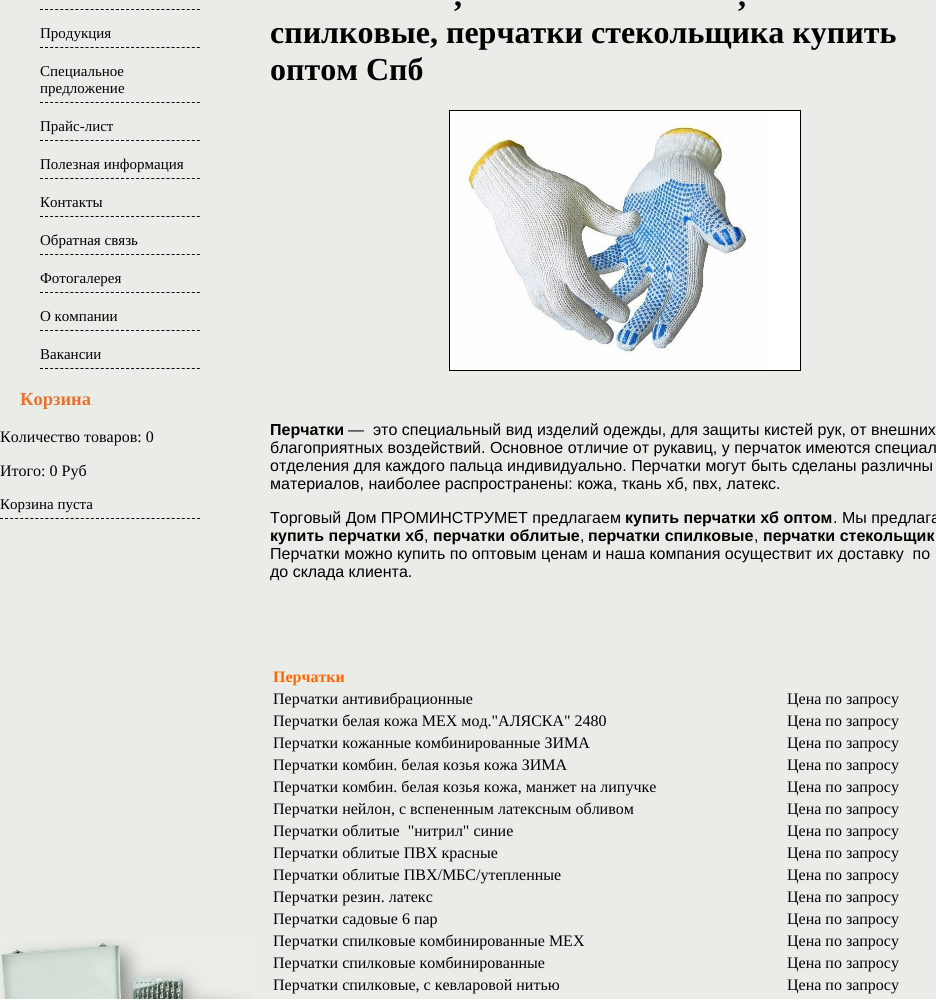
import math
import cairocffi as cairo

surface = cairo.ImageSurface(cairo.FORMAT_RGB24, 936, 999)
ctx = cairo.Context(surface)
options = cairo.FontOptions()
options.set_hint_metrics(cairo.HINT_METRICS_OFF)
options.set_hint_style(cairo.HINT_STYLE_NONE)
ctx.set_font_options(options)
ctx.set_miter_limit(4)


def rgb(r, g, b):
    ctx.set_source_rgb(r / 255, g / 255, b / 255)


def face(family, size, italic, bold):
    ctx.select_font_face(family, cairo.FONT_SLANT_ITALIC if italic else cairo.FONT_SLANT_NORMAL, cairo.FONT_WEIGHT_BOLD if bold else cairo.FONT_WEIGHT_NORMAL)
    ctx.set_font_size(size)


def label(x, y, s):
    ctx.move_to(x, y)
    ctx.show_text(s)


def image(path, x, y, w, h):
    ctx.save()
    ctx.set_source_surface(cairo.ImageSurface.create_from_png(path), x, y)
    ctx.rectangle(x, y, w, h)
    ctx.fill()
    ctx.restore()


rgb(234, 237, 231)
ctx.paint()
ctx.new_path()
ctx.move_to(40, 9.5)
ctx.line_to(200, 9.5)
rgb(0, 0, 0)
ctx.set_line_width(1)
ctx.set_dash([3, 2.06])
ctx.stroke()
ctx.new_path()
ctx.move_to(40, 47.5)
ctx.line_to(200, 47.5)
ctx.stroke()
face('Liberation Serif', 15, 0, 0)
label(40, 38, 'Продукция')
ctx.new_path()
ctx.move_to(40, 102.5)
ctx.line_to(200, 102.5)
ctx.stroke()
label(40, 76, 'Специальное')
label(40, 93, 'предложение')
ctx.new_path()
ctx.move_to(40, 140.5)
ctx.line_to(200, 140.5)
ctx.stroke()
label(40, 131, 'Прайс-лист')
ctx.new_path()
ctx.move_to(40, 178.5)
ctx.line_to(200, 178.5)
ctx.stroke()
label(40, 169, 'Полезная информация')
ctx.new_path()
ctx.move_to(40, 216.5)
ctx.line_to(200, 216.5)
ctx.stroke()
label(40, 207, 'Контакты')
ctx.new_path()
ctx.move_to(40, 254.5)
ctx.line_to(200, 254.5)
ctx.stroke()
label(40, 245, 'Обратная связь')
ctx.new_path()
ctx.move_to(40, 292.5)
ctx.line_to(200, 292.5)
ctx.stroke()
label(40, 283, 'Фотогалерея')
ctx.new_path()
ctx.move_to(40, 330.5)
ctx.line_to(200, 330.5)
ctx.stroke()
label(40, 321, 'О компании')
ctx.new_path()
ctx.move_to(40, 368.5)
ctx.line_to(200, 368.5)
ctx.stroke()
label(40, 359, 'Вакансии')
face('Liberation Serif', 18.5, 0, 1)
rgb(233, 113, 46)
label(20, 405, 'Корзина')
face('Liberation Serif', 16, 0, 0)
rgb(0, 0, 0)
label(0, 442, 'Количество товаров: 0')
label(0, 476, 'Итого: 0 Руб')
ctx.new_path()
ctx.move_to(0, 518.5)
ctx.line_to(200, 518.5)
ctx.set_dash([3, 2.05])
ctx.stroke()
face('Liberation Serif', 15, 0, 0)
label(0, 509, 'Корзина пуста')
image('image0.png', 0, 938, 251, 61)
face('Liberation Serif', 32, 0, 1)
label(454, 6, ',')
label(738, 6, ',')
label(270, 43, 'спилковые, перчатки стекольщика купить')
label(270, 80, 'оптом Спб')
ctx.rectangle(449.5, 110.5, 351, 260)
ctx.set_dash([])
ctx.stroke()
image('image1.png', 450, 111, 350, 259)
face('Liberation Sans', 16, 0, 1)
label(270, 435, 'Перчатки')
face('Liberation Sans', 16, 0, 0)
label(348, 435, '—  это специальный вид изделий одежды, для защиты кистей рук, от внешних')
label(270, 453, 'благоприятных воздействий. Основное отличие от рукавиц, у перчаток имеются специал')
label(270, 471, 'отделения для каждого пальца индивидуально. Перчатки могут быть сделаны различны')
label(270, 489, 'материалов, наиболее распространены: кожа, ткань хб, пвх, латекс.')
label(270, 523, 'Торговый Дом ПРОМИНСТРУМЕТ предлагаем')
face('Liberation Sans', 16, 0, 1)
label(625, 523, 'купить перчатки хб оптом')
face('Liberation Sans', 16, 0, 0)
label(833, 523, '. Мы предлага')
face('Liberation Sans', 16, 0, 1)
label(270, 541, 'купить перчатки хб')
face('Liberation Sans', 16, 0, 0)
label(424, 541, ',')
face('Liberation Sans', 16, 0, 1)
label(433, 541, 'перчатки облитые')
face('Liberation Sans', 16, 0, 0)
label(580, 541, ',')
face('Liberation Sans', 16, 0, 1)
label(588, 541, 'перчатки спилковые')
face('Liberation Sans', 16, 0, 0)
label(754, 541, ',')
face('Liberation Sans', 16, 0, 1)
label(763, 541, 'перчатки стекольщик')
face('Liberation Sans', 16, 0, 0)
label(270, 559, 'Перчатки можно купить по оптовым ценам и наша компания осуществит их доставку  по')
label(270, 577, 'до склада клиента.')
face('Liberation Serif', 16, 0, 1)
rgb(255, 102, 0)
label(273, 682, 'Перчатки')
face('Liberation Serif', 16, 0, 0)
rgb(0, 0, 0)
label(273, 704, 'Перчатки антивибрационные')
label(787, 704, 'Цена по запросу')
label(273, 726, 'Перчатки белая кожа МЕХ мод."АЛЯСКА" 2480')
label(787, 726, 'Цена по запросу')
label(273, 748, 'Перчатки кожанные комбинированные ЗИМА')
label(787, 748, 'Цена по запросу')
label(273, 770, 'Перчатки комбин. белая козья кожа ЗИМА')
label(787, 770, 'Цена по запросу')
label(273, 792, 'Перчатки комбин. белая козья кожа, манжет на липучке')
label(787, 792, 'Цена по запросу')
label(273, 814, 'Перчатки нейлон, с вспененным латексным обливом')
label(787, 814, 'Цена по запросу')
label(273, 836, 'Перчатки облитые  "нитрил" синие')
label(787, 836, 'Цена по запросу')
label(273, 858, 'Перчатки облитые ПВХ красные')
label(787, 858, 'Цена по запросу')
label(273, 880, 'Перчатки облитые ПВХ/МБС/утепленные')
label(787, 880, 'Цена по запросу')
label(273, 902, 'Перчатки резин. латекс')
label(787, 902, 'Цена по запросу')
label(273, 924, 'Перчатки садовые 6 пар')
label(787, 924, 'Цена по запросу')
label(273, 946, 'Перчатки спилковые комбинированные МЕХ')
label(787, 946, 'Цена по запросу')
label(273, 968, 'Перчатки спилковые комбинированные')
label(787, 968, 'Цена по запросу')
label(273, 990, 'Перчатки спилковые, с кевларовой нитью')
label(787, 990, 'Цена по запросу')
surface.write_to_png('render.png')
